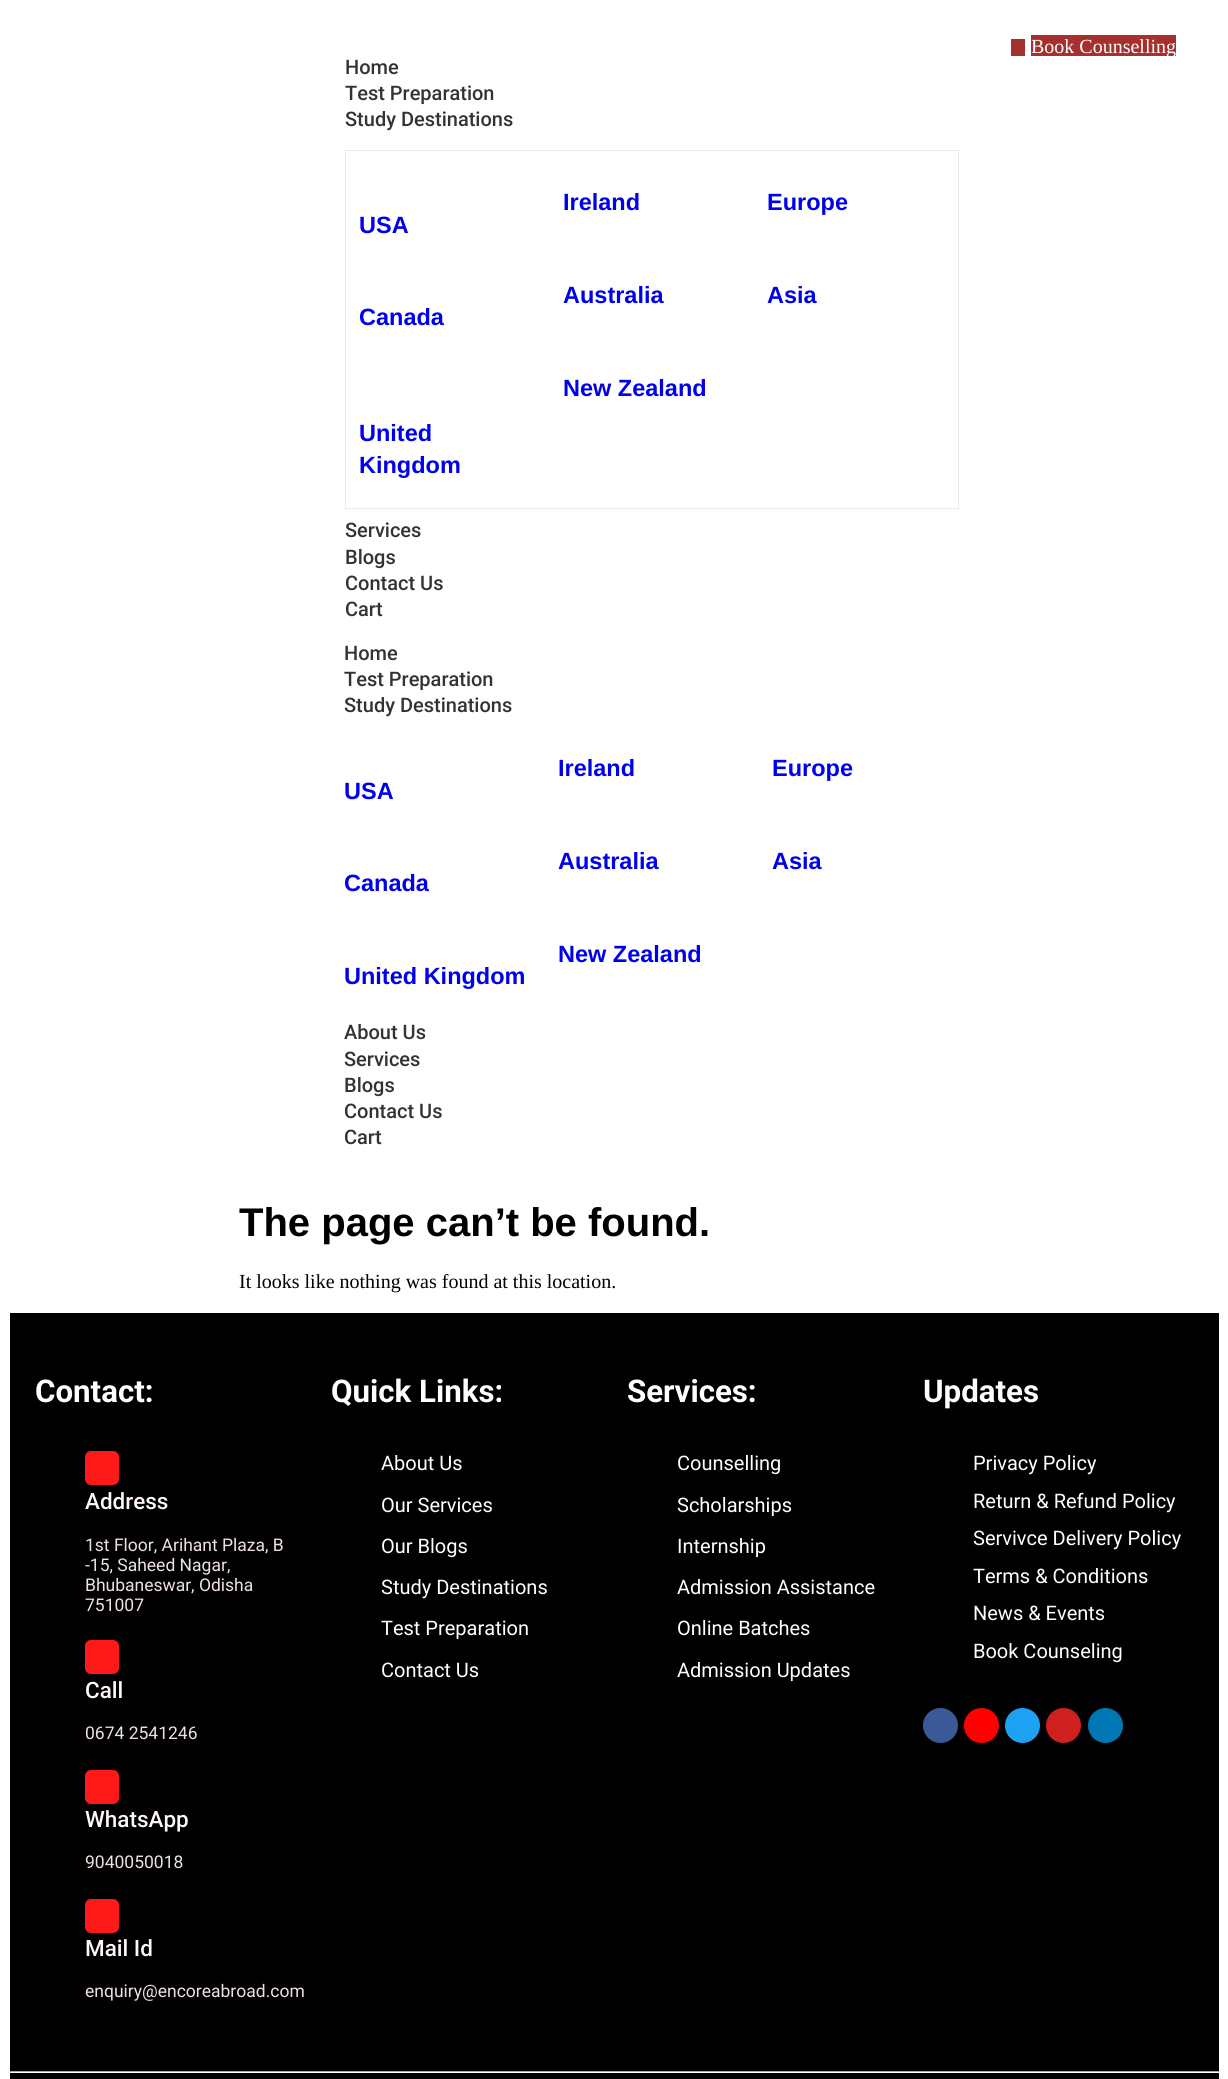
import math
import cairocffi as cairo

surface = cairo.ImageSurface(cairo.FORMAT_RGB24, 1228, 2079)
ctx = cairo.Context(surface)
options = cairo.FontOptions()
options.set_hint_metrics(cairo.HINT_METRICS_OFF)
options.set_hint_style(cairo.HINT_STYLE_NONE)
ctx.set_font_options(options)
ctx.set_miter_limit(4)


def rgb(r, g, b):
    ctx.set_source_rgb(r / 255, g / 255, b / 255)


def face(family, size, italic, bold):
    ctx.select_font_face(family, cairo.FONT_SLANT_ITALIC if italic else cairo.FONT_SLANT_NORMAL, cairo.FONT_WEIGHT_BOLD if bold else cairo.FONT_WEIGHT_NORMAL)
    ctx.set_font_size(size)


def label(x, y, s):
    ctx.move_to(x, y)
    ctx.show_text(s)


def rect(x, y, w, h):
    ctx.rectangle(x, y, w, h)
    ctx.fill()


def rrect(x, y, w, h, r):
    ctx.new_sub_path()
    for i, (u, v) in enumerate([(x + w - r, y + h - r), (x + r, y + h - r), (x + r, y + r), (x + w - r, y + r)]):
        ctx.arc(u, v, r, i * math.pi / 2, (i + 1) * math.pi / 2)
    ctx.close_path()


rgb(255, 255, 255)
ctx.paint()
rgb(165, 48, 46)
rect(1031, 35, 145, 21)
face('Liberation Serif', 20, 0, 0)
rgb(255, 255, 255)
label(1031, 53, 'Book Counselling')
rgb(165, 48, 46)
rect(1011, 39, 14, 17)
face('Roboto Medium', 20, 0, 0)
rgb(51, 51, 51)
label(345, 74, 'Home')
label(345, 100, 'Test Preparation')
label(345, 126, 'Study Destinations')
ctx.rectangle(345.5, 150.5, 613, 358)
rgb(232, 232, 232)
ctx.set_line_width(1)
ctx.stroke()
face('Liberation Sans', 23.5, 0, 1)
rgb(0, 0, 238)
label(359, 233, 'USA')
label(359, 325, 'Canada')
label(359, 441, 'United')
label(359, 473, 'Kingdom')
label(563, 210, 'Ireland')
label(563, 303, 'Australia')
label(563, 396, 'New Zealand')
label(767, 210, 'Europe')
label(767, 303, 'Asia')
face('Roboto Medium', 20, 0, 0)
rgb(51, 51, 51)
label(345, 537, 'Services')
label(345, 564, 'Blogs')
label(345, 590, 'Contact Us')
label(345, 616, 'Cart')
label(344, 660, 'Home')
label(344, 686, 'Test Preparation')
label(344, 712, 'Study Destinations')
face('Liberation Sans', 23.5, 0, 1)
rgb(0, 0, 238)
label(344, 799, 'USA')
label(344, 891, 'Canada')
label(344, 984, 'United Kingdom')
label(558, 776, 'Ireland')
label(558, 869, 'Australia')
label(558, 962, 'New Zealand')
label(772, 776, 'Europe')
label(772, 869, 'Asia')
face('Roboto Medium', 20, 0, 0)
rgb(51, 51, 51)
label(344, 1039, 'About Us')
label(344, 1066, 'Services')
label(344, 1092, 'Blogs')
label(344, 1118, 'Contact Us')
label(344, 1144, 'Cart')
face('Liberation Sans', 40, 0, 1)
rgb(0, 0, 0)
label(239, 1236, 'The page can’t be found.')
face('Liberation Serif', 20, 0, 0)
label(239, 1288, 'It looks like nothing was found at this location.')
rect(10, 1313, 1209, 758)
face('Roboto', 31.25, 0, 1)
rgb(255, 255, 255)
label(35, 1402, 'Contact:')
rgb(255, 25, 25)
rrect(85, 1451, 34, 34, 6)
ctx.fill()
face('Roboto Medium', 22.5, 0, 0)
rgb(255, 247, 247)
label(85, 1509, 'Address')
face('Roboto', 17.5, 0, 0)
rgb(238, 225, 225)
label(85, 1551, '1st Floor, Arihant Plaza, B')
label(85, 1571, '-15, Saheed Nagar,')
label(85, 1591, 'Bhubaneswar, Odisha')
label(85, 1611, '751007')
rgb(255, 25, 25)
rrect(85, 1640, 34, 34, 6)
ctx.fill()
face('Roboto Medium', 22.5, 0, 0)
rgb(255, 247, 247)
label(85, 1698, 'Call')
face('Roboto', 17.5, 0, 0)
rgb(238, 225, 225)
label(85, 1739, '0674 2541246')
rgb(255, 25, 25)
rrect(85, 1770, 34, 34, 6)
ctx.fill()
face('Roboto Medium', 22.5, 0, 0)
rgb(255, 247, 247)
label(85, 1827, 'WhatsApp')
face('Roboto', 17.5, 0, 0)
rgb(238, 225, 225)
label(85, 1868, '9040050018')
rgb(255, 25, 25)
rrect(85, 1899, 34, 34, 6)
ctx.fill()
face('Roboto Medium', 22.5, 0, 0)
rgb(255, 247, 247)
label(85, 1956, 'Mail Id')
face('Roboto', 17.5, 0, 0)
rgb(238, 225, 225)
label(85, 1997, 'enquiry@encoreabroad.com')
face('Roboto', 31.25, 0, 1)
rgb(255, 255, 255)
label(331, 1402, 'Quick Links:')
face('Roboto', 20, 0, 0)
label(381, 1470, 'About Us')
label(381, 1512, 'Our Services')
label(381, 1553, 'Our Blogs')
label(381, 1594, 'Study Destinations')
label(381, 1635, 'Test Preparation')
label(381, 1677, 'Contact Us')
face('Roboto', 31.25, 0, 1)
label(627, 1402, 'Services:')
face('Roboto', 20, 0, 0)
label(677, 1470, 'Counselling')
label(677, 1512, 'Scholarships')
label(677, 1553, 'Internship')
label(677, 1594, 'Admission Assistance')
label(677, 1635, 'Online Batches')
label(677, 1677, 'Admission Updates')
face('Roboto', 31.25, 0, 1)
label(923, 1402, 'Updates')
face('Roboto', 20, 0, 0)
label(973, 1470, 'Privacy Policy')
label(973, 1508, 'Return & Refund Policy')
label(973, 1545, 'Servivce Delivery Policy')
label(973, 1583, 'Terms & Conditions')
label(973, 1620, 'News & Events')
label(973, 1658, 'Book Counseling')
rgb(59, 89, 152)
ctx.new_path()
ctx.arc(940.5, 1725.5, 17.5, 0, 2 * math.pi)
ctx.fill()
rgb(255, 0, 0)
ctx.arc(981.5, 1725.5, 17.5, 0, 2 * math.pi)
ctx.fill()
rgb(29, 161, 242)
ctx.arc(1022.5, 1725.5, 17.5, 0, 2 * math.pi)
ctx.fill()
rgb(205, 32, 31)
ctx.arc(1063.5, 1725.5, 17.5, 0, 2 * math.pi)
ctx.fill()
rgb(0, 119, 181)
ctx.arc(1105.5, 1725.5, 17.5, 0, 2 * math.pi)
ctx.fill()
rgb(0, 0, 0)
rect(10, 2073, 1209, 6)
rgb(255, 157, 1)
rect(10, 2071, 1209, 1)
surface.write_to_png('render.png')
